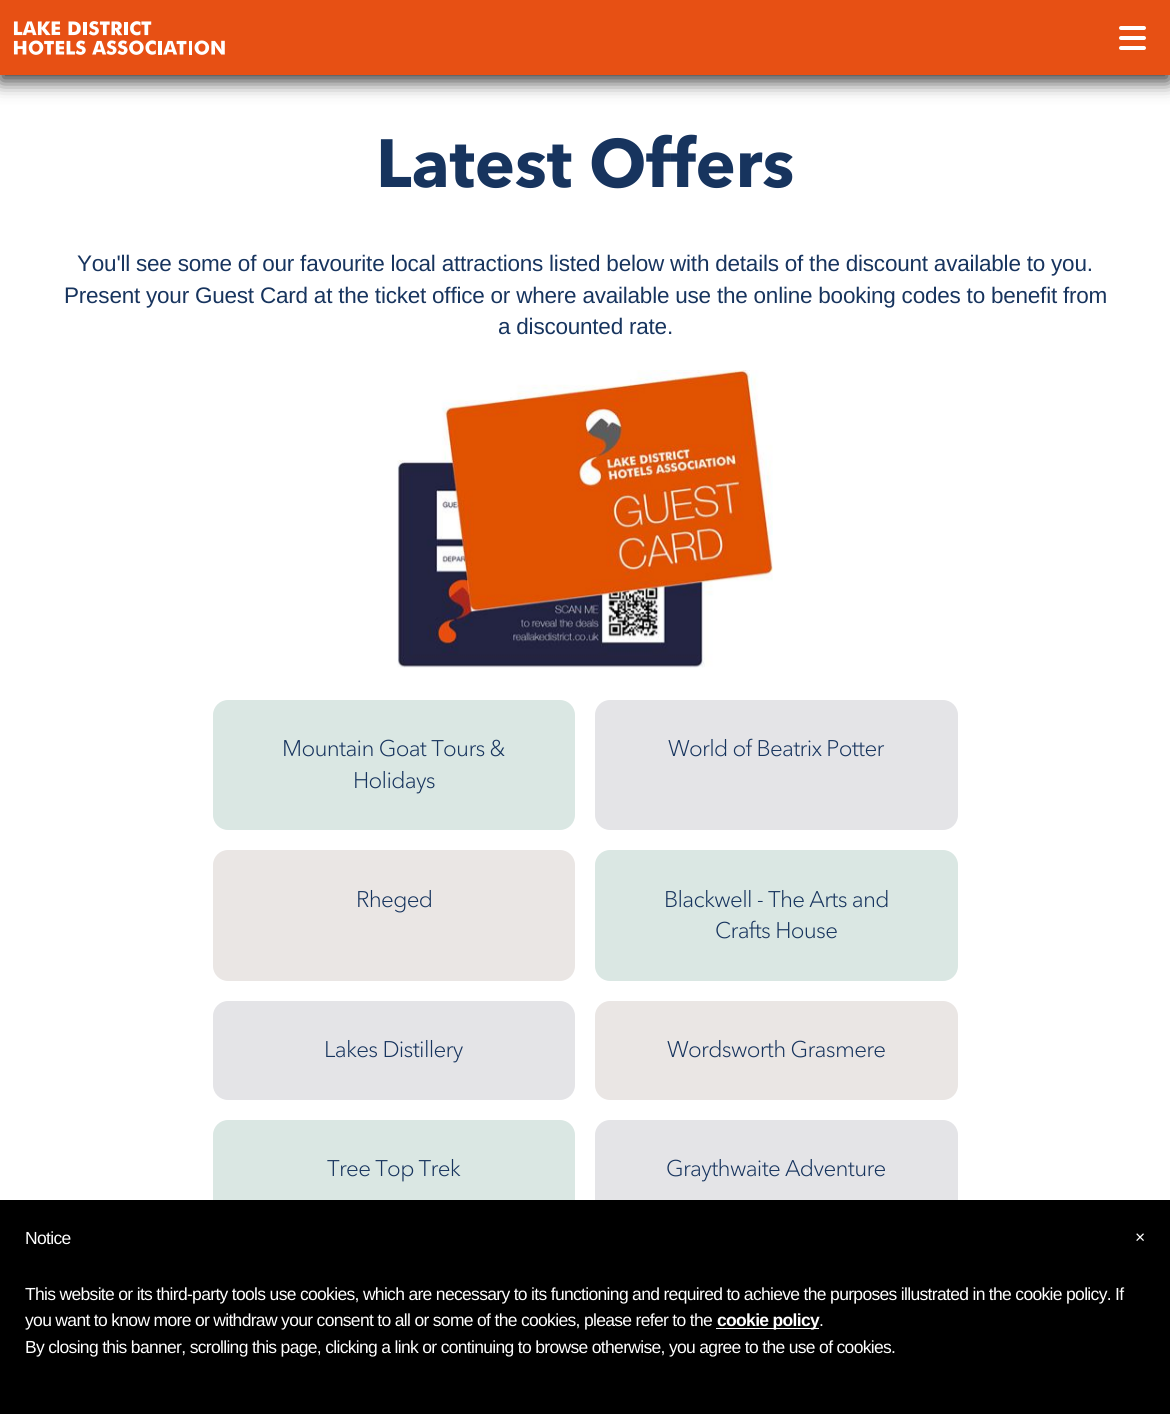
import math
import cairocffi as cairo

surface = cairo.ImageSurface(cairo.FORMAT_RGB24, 1170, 1414)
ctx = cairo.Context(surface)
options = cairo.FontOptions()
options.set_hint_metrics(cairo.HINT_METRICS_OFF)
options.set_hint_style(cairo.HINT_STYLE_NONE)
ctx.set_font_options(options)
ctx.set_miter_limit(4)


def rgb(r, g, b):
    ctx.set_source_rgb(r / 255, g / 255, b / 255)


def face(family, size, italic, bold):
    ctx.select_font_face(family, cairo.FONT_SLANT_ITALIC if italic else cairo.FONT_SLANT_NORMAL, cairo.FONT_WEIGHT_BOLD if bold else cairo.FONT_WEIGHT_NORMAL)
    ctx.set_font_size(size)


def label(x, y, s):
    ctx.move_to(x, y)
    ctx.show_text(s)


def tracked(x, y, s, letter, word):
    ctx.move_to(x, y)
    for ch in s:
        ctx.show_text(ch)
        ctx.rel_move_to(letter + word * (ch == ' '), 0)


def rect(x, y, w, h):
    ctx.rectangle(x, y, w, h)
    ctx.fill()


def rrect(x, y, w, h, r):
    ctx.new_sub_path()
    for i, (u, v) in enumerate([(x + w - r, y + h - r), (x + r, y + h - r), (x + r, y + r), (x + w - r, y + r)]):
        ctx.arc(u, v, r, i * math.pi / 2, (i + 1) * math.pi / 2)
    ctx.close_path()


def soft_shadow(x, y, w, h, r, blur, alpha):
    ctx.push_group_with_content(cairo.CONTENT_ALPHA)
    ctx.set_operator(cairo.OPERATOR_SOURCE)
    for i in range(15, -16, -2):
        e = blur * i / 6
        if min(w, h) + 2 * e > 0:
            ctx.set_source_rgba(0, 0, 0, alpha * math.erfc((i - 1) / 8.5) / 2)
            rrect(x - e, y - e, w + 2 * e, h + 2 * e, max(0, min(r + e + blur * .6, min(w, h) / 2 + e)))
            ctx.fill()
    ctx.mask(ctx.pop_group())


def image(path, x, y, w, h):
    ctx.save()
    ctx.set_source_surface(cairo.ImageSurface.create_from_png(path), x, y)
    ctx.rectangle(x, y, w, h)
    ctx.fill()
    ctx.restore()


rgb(255, 255, 255)
ctx.paint()
rgb(0, 0, 0)
soft_shadow(0, 6, 1170, 75, 0, 9.5, 0.8)
rgb(231, 80, 20)
rect(0, 0, 1170, 75)
image('image0.png', 13, 21, 212, 34)
rgb(255, 255, 255)
rrect(1119, 36, 27, 4, 2)
ctx.fill()
rrect(1119, 26, 27, 4, 2)
ctx.fill()
rrect(1119, 46, 27, 4, 2)
ctx.fill()
face('Avenir Next', 67.5, 0, 1)
rgb(23, 52, 94)
label(376, 187, 'Latest Offers')
face('Liberation Sans', 22.5, 0, 0)
tracked(77, 271, 'You\'ll see some of our favourite local attractions listed below with details of the discount available to you.', -0.22, 0)
tracked(64, 303, 'Present your Guest Card at the ticket office or where available use the online booking codes to benefit from', -0.22, 0)
tracked(498, 334, 'a discounted rate.', -0.22, 0)
image('image1.png', 397, 370, 376, 298)
rgb(218, 231, 227)
rrect(213, 700, 362, 130, 15)
ctx.fill()
face('Avenir Next Light', 22.5, 0, 0)
rgb(23, 52, 94)
tracked(282, 756, 'Mountain Goat Tours &', -0.68, 0)
tracked(353, 788, 'Holidays', -0.68, 0)
rgb(228, 228, 231)
rrect(595, 700, 363, 130, 15)
ctx.fill()
rgb(23, 52, 94)
tracked(668, 756, 'World of Beatrix Potter', -0.68, 0)
rgb(234, 230, 228)
rrect(213, 850, 362, 131, 15)
ctx.fill()
rgb(23, 52, 94)
tracked(356, 907, 'Rheged', -0.68, 0)
rgb(218, 231, 227)
rrect(595, 850, 363, 131, 15)
ctx.fill()
rgb(23, 52, 94)
tracked(664, 907, 'Blackwell - The Arts and', -0.68, 0)
tracked(715, 938, 'Crafts House', -0.68, 0)
rgb(228, 228, 231)
rrect(213, 1001, 362, 99, 15)
ctx.fill()
rgb(23, 52, 94)
tracked(324, 1057, 'Lakes Distillery', -0.68, 0)
rgb(234, 230, 228)
rrect(595, 1001, 363, 99, 15)
ctx.fill()
rgb(23, 52, 94)
tracked(667, 1057, 'Wordsworth Grasmere', -0.68, 0)
rgb(218, 231, 227)
rrect(213, 1120, 362, 99, 15)
ctx.fill()
rgb(23, 52, 94)
tracked(327, 1176, 'Tree Top Trek', -0.68, 0)
rgb(228, 228, 231)
rrect(595, 1120, 363, 99, 15)
ctx.fill()
rgb(23, 52, 94)
tracked(666, 1176, 'Graythwaite Adventure', -0.68, 0)
rgb(0, 0, 0)
rect(0, 1200, 1170, 214)
face('Liberation Sans', 17.5, 0, 0)
rgb(255, 255, 255)
tracked(25, 1244, 'Notice', -0.68, 0)
tracked(25, 1300, 'This website or its third-party tools use cookies, which are necessary to its functioning and required to achieve the purposes illustrated in the cookie policy. If', -0.68, 0)
tracked(25, 1326, 'you want to know more or withdraw your consent to all or some of the cookies, please refer to the', -0.68, 0)
rect(716, 1328, 103, 1)
face('Liberation Sans', 17.5, 0, 1)
tracked(717, 1326, 'cookie policy', -0.68, 0)
face('Liberation Sans', 17.5, 0, 0)
tracked(819, 1326, '.', -0.68, 0)
tracked(25, 1353, 'By closing this banner, scrolling this page, clicking a link or continuing to browse otherwise, you agree to the use of cookies.', -0.68, 0)
tracked(1135, 1243, '×', -0.68, 0)
surface.write_to_png('render.png')
